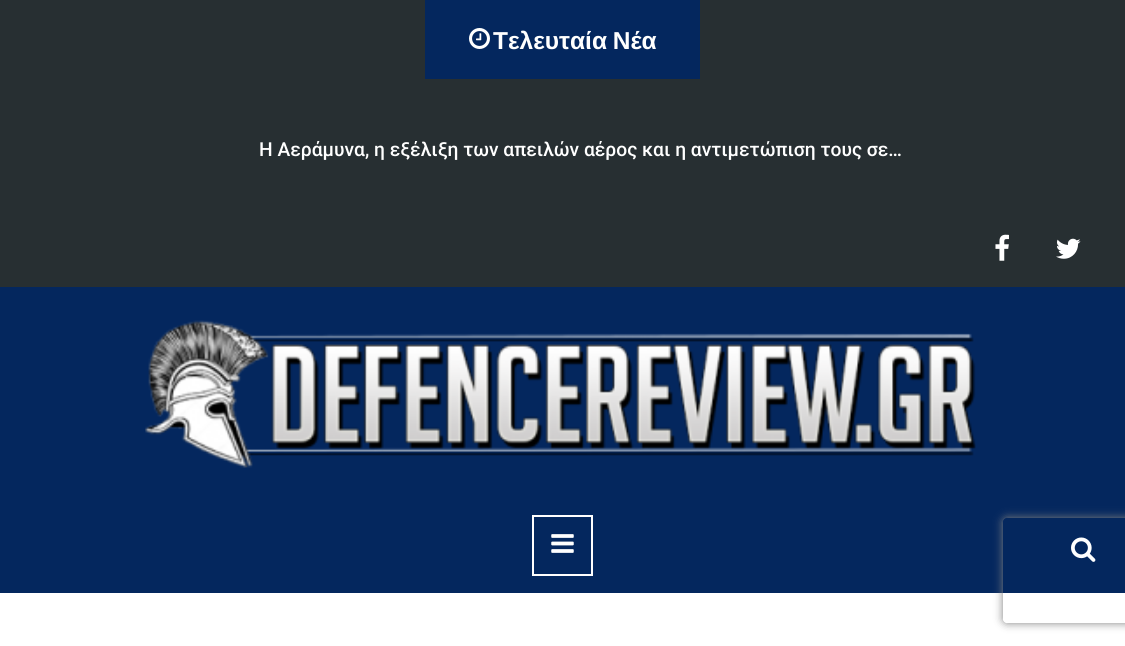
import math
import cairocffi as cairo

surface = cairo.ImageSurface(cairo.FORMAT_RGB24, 1125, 646)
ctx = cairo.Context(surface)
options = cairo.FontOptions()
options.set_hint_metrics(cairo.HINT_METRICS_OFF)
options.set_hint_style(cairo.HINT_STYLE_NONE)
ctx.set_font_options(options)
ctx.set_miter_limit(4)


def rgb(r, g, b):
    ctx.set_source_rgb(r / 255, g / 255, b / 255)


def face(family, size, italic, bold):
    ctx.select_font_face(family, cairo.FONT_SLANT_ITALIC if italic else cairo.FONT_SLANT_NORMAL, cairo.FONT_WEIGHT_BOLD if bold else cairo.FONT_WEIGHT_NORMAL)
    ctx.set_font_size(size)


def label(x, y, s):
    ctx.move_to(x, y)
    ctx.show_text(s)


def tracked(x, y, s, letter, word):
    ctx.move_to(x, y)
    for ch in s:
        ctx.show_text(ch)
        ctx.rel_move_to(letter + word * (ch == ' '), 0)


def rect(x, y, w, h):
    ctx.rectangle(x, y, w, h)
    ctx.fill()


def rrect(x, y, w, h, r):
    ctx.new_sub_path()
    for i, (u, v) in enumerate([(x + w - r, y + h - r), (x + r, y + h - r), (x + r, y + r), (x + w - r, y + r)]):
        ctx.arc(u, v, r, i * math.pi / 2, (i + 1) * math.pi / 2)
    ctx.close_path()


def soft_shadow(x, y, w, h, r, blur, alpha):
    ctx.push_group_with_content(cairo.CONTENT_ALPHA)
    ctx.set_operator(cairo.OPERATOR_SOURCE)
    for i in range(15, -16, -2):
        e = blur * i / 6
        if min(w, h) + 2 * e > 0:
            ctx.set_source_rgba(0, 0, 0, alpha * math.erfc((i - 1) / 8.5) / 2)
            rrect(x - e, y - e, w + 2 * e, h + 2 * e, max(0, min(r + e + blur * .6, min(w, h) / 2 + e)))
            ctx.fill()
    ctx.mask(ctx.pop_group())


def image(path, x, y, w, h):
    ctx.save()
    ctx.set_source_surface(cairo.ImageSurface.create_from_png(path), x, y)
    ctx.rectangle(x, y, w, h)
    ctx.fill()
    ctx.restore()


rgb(255, 255, 255)
ctx.paint()
rgb(39, 47, 50)
rect(0, 0, 1125, 287)
rgb(4, 39, 94)
rect(425, 0, 275, 79)
image('image0.png', 469, 28, 21, 21)
face('Liberation Sans', 24.5, 0, 1)
rgb(255, 255, 255)
tracked(493, 49, 'Τελευταία Νέα', 0, -1)
face('Roboto Medium', 19.25, 0, 0)
label(259, 156, 'Η Αεράμυνα, η εξέλιξη των απειλών αέρος και η αντιμετώπιση τους σε…')
image('image1.png', 995, 234, 14, 27)
image('image2.png', 1056, 238, 25, 21)
rgb(4, 39, 94)
rect(0, 287, 1125, 306)
image('image3.png', 145, 320, 831, 148)
ctx.rectangle(533, 516, 59, 59)
rgb(255, 255, 255)
ctx.stroke()
image('image4.png', 551, 534, 23, 19)
image('image5.png', 1071, 537, 25, 25)
ctx.save()
ctx.set_fill_rule(cairo.FILL_RULE_EVEN_ODD)
ctx.new_path()
ctx.move_to(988, 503)
ctx.line_to(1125, 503)
ctx.line_to(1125, 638)
ctx.line_to(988, 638)
ctx.close_path()
ctx.move_to(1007, 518)
ctx.line_to(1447, 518)
ctx.curve_to(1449, 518, 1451, 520, 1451, 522)
ctx.line_to(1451, 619)
ctx.curve_to(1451, 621, 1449, 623, 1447, 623)
ctx.line_to(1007, 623)
ctx.curve_to(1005, 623, 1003, 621, 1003, 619)
ctx.line_to(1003, 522)
ctx.curve_to(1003, 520, 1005, 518, 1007, 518)
ctx.close_path()
ctx.clip()
rgb(128, 128, 128)
soft_shadow(1003, 518, 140, 105, 4, 4.5, 1)
ctx.restore()
surface.write_to_png('render.png')
